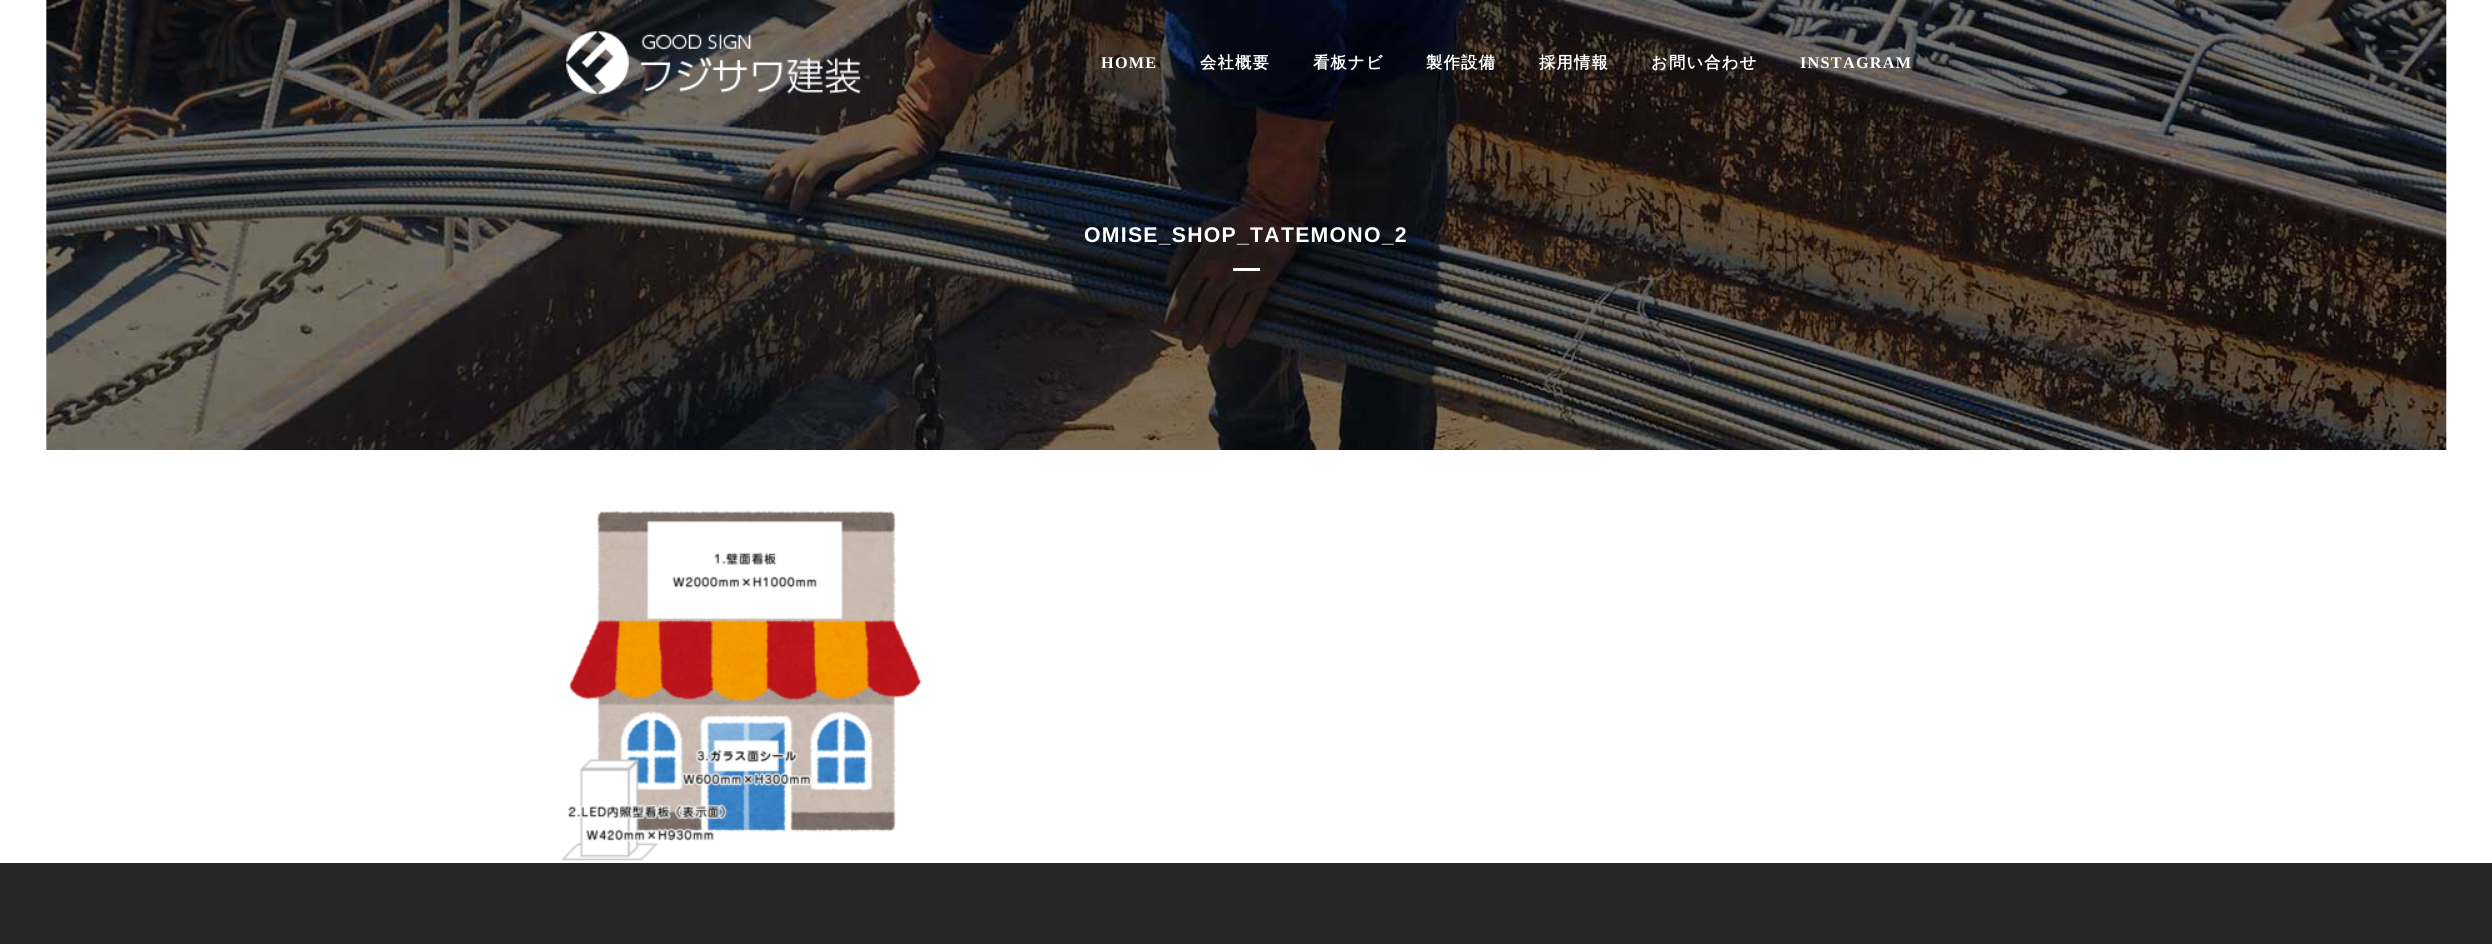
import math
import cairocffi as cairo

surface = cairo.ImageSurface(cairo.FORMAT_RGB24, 2492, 944)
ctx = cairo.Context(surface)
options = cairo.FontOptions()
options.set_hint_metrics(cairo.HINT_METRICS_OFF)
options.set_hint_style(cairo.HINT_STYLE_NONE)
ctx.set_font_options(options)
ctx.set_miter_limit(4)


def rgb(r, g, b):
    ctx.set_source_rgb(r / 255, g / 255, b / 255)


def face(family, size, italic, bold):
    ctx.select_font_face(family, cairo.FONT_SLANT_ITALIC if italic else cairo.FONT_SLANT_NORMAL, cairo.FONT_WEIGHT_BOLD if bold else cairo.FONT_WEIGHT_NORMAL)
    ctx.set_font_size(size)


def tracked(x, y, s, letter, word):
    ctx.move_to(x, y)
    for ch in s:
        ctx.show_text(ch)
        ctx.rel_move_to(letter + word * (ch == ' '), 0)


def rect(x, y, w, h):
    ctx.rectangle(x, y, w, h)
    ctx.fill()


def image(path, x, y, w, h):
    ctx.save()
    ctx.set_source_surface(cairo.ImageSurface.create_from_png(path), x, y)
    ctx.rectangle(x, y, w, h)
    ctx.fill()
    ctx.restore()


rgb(255, 255, 255)
ctx.paint()
image('image1.png', 46, 0, 2401, 450)
image('image0.png', 566, 31, 295, 63)
face('Liberation Serif', 16.25, 0, 1)
rgb(255, 255, 255)
tracked(1101, 68, 'HOME', 1.25, 0)
face('WenQuanYi Zen Hei', 16.25, 0, 1)
tracked(1200, 68, '会社概要', 1.25, 0)
tracked(1313, 68, '看板ナビ', 1.25, 0)
tracked(1426, 68, '製作設備', 1.25, 0)
tracked(1539, 68, '採用情報', 1.25, 0)
tracked(1651, 68, 'お問い合わせ', 1.25, 0)
face('Liberation Serif', 16.25, 0, 1)
tracked(1800, 68, 'INSTAGRAM', 1.25, 0)
face('Liberation Sans', 21.25, 0, 1)
tracked(1084, 242, 'OMISE_SHOP_TATEMONO_2', 1.25, 0)
rect(1233, 268, 27, 3)
image('image2.png', 561, 511, 361, 350)
rgb(38, 38, 38)
rect(0, 863, 2492, 81)
surface.write_to_png('render.png')
